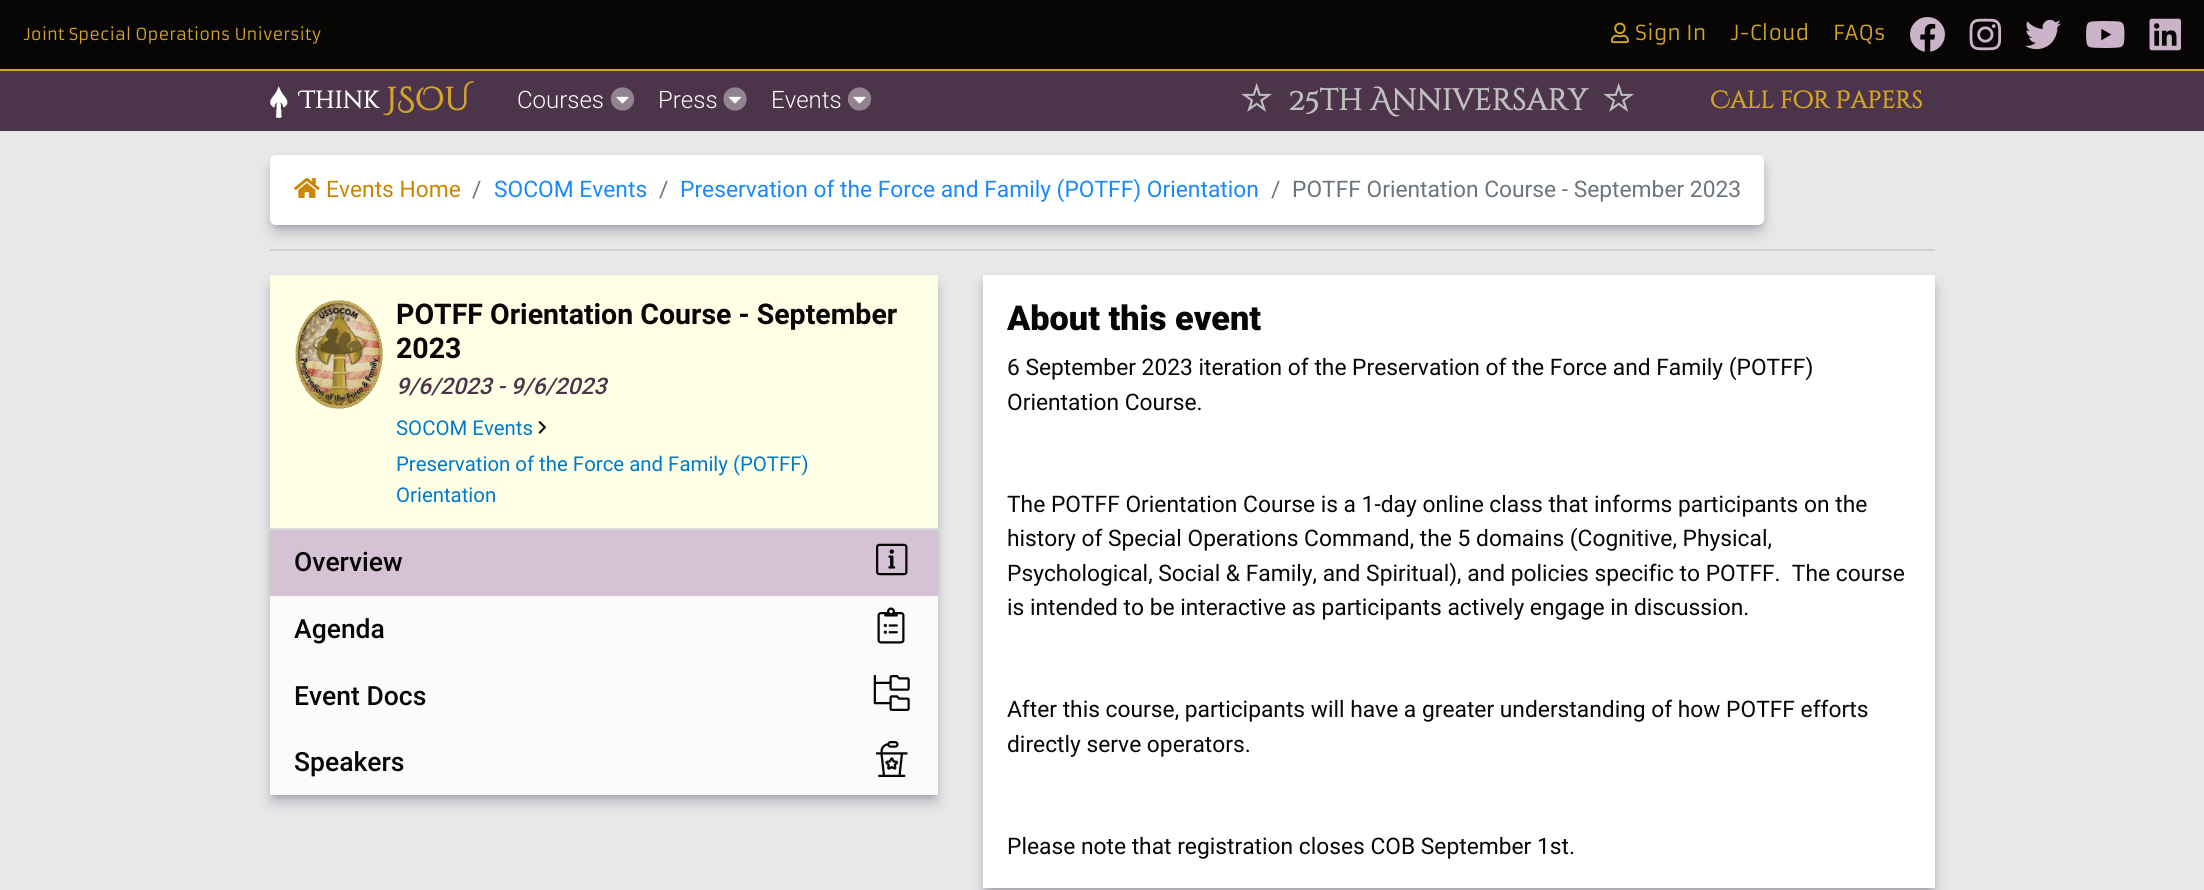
import math
import cairocffi as cairo

surface = cairo.ImageSurface(cairo.FORMAT_RGB24, 2204, 890)
ctx = cairo.Context(surface)
options = cairo.FontOptions()
options.set_hint_metrics(cairo.HINT_METRICS_OFF)
options.set_hint_style(cairo.HINT_STYLE_NONE)
ctx.set_font_options(options)
ctx.set_miter_limit(4)


def rgb(r, g, b):
    ctx.set_source_rgb(r / 255, g / 255, b / 255)


def face(family, size, italic, bold):
    ctx.select_font_face(family, cairo.FONT_SLANT_ITALIC if italic else cairo.FONT_SLANT_NORMAL, cairo.FONT_WEIGHT_BOLD if bold else cairo.FONT_WEIGHT_NORMAL)
    ctx.set_font_size(size)


def label(x, y, s):
    ctx.move_to(x, y)
    ctx.show_text(s)


def rect(x, y, w, h):
    ctx.rectangle(x, y, w, h)
    ctx.fill()


def rrect(x, y, w, h, r):
    ctx.new_sub_path()
    for i, (u, v) in enumerate([(x + w - r, y + h - r), (x + r, y + h - r), (x + r, y + r), (x + w - r, y + r)]):
        ctx.arc(u, v, r, i * math.pi / 2, (i + 1) * math.pi / 2)
    ctx.close_path()


def soft_shadow(x, y, w, h, r, blur, alpha):
    ctx.push_group_with_content(cairo.CONTENT_ALPHA)
    ctx.set_operator(cairo.OPERATOR_SOURCE)
    for i in range(15, -16, -2):
        e = blur * i / 6
        if min(w, h) + 2 * e > 0:
            ctx.set_source_rgba(0, 0, 0, alpha * math.erfc((i - 1) / 8.5) / 2)
            rrect(x - e, y - e, w + 2 * e, h + 2 * e, max(0, min(r + e + blur * .6, min(w, h) / 2 + e)))
            ctx.fill()
    ctx.mask(ctx.pop_group())


def image(path, x, y, w, h):
    ctx.save()
    ctx.set_source_surface(cairo.ImageSurface.create_from_png(path), x, y)
    ctx.rectangle(x, y, w, h)
    ctx.fill()
    ctx.restore()


rgb(233, 233, 233)
ctx.paint()
rgb(7, 6, 5)
rect(0, 0, 2204, 69)
rgb(210, 165, 39)
rect(0, 69, 2204, 2)
face('Armata', 16.3, 0, 0)
label(24, 40, 'Joint Special Operations University')
image('image0.png', 1611, 22, 18, 22)
face('Armata', 20.4, 0, 0)
label(1635, 40, 'Sign In')
label(1731, 40, 'J-Cloud')
label(1833, 40, 'FAQs')
image('image1.png', 1910, 17, 35, 35)
image('image2.png', 1969, 18, 33, 33)
image('image3.png', 2025, 19, 36, 31)
image('image4.png', 2086, 21, 39, 27)
image('image5.png', 2149, 18, 32, 33)
rgb(76, 52, 74)
rect(0, 71, 2204, 60)
image('image6.png', 270, 86, 18, 32)
face('Cinzel Decorative', 24, 0, 1)
rgb(251, 251, 251)
label(300, 108, 'Think')
face('Cinzel Decorative', 32, 0, 1)
rgb(210, 165, 39)
label(386, 110, 'JSOU')
face('Roboto Light', 24, 0, 0)
rgb(251, 251, 251)
label(517, 108, 'Courses')
image('image8.png', 616, 96, 13, 8)
image('image7.png', 610, 87, 25, 24)
label(658, 108, 'Press')
image('image10.png', 728, 96, 14, 8)
image('image9.png', 723, 87, 24, 24)
label(771, 108, 'Events')
image('image8.png', 853, 96, 13, 8)
image('image7.png', 847, 87, 25, 24)
face('DejaVu Sans', 36, 0, 1)
rgb(192, 192, 192)
label(1240, 111, '☆')
face('Cinzel Decorative', 30, 0, 1)
label(1288, 110, '25th Anniversary')
face('DejaVu Sans', 36, 0, 1)
label(1602, 111, '☆')
face('Cinzel Decorative', 24, 0, 1)
rgb(210, 165, 39)
label(1710, 108, 'Call for Papers')
rgb(0, 0, 0)
soft_shadow(275, 164, 1485, 61, 1.5, 5, 0.3)
rgb(210, 210, 210)
rect(270, 249, 1665, 2)
rgb(50, 50, 93)
soft_shadow(273, 167, 1488, 64, 3, 9, 0.25)
rgb(255, 255, 255)
rrect(270, 155, 1494, 70, 6)
ctx.fill()
image('image11.png', 294, 178, 26, 20)
face('Roboto', 22.8, 0, 0)
rgb(204, 133, 0)
label(326, 197, 'Events Home')
rgb(108, 117, 125)
label(472, 197, '/')
rgb(26, 136, 255)
label(494, 197, 'SOCOM Events')
rgb(108, 117, 125)
label(659, 197, '/')
rgb(26, 136, 255)
label(680, 197, 'Preservation of the Force and Family (POTFF) Orientation')
rgb(108, 117, 125)
label(1271, 197, '/')
label(1292, 197, 'POTFF Orientation Course - September 2023')
rgb(0, 0, 0)
soft_shadow(275, 284, 658, 511, 0, 5, 0.3)
rgb(50, 50, 93)
soft_shadow(273, 287, 662, 514, 0, 9, 0.25)
rgb(255, 255, 230)
rect(270, 275, 668, 253)
rgb(217, 217, 217)
rect(270, 528, 668, 2)
image('image12.png', 295, 300, 88, 109)
face('Roboto', 28.5, 0, 1)
rgb(7, 6, 5)
label(396, 324, 'POTFF Orientation Course - September')
label(396, 358, '2023')
face('Roboto Medium', 22.8, 1, 0)
rgb(76, 52, 74)
label(396, 394, '9/6/2023 - 9/6/2023')
face('Roboto', 20.4, 0, 0)
rgb(0, 122, 204)
label(396, 435, 'SOCOM Events')
image('image13.png', 538, 421, 9, 13)
label(396, 471, 'Preservation of the Force and Family (POTFF)')
label(396, 502, 'Orientation')
rgb(213, 194, 212)
rect(270, 530, 668, 66)
face('Roboto Medium', 26.5, 0, 0)
rgb(7, 6, 5)
label(294, 571, 'Overview')
image('image14.png', 876, 543, 32, 33)
rgb(251, 251, 251)
rect(270, 596, 668, 199)
rgb(7, 6, 5)
label(294, 638, 'Agenda')
image('image15.png', 877, 607, 28, 37)
label(294, 705, 'Event Docs')
image('image16.png', 873, 675, 37, 36)
label(294, 771, 'Speakers')
image('image17.png', 876, 741, 32, 36)
rgb(0, 0, 0)
soft_shadow(987, 284, 944, 604, 0, 5, 0.3)
rgb(50, 50, 93)
soft_shadow(986, 287, 946, 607, 0, 9, 0.25)
rgb(255, 255, 255)
rect(983, 275, 952, 613)
face('Roboto Black', 34.25, 0, 0)
rgb(7, 6, 5)
label(1007, 330, 'About this event')
face('Roboto', 22.8, 0, 0)
label(1007, 375, '6 September 2023 iteration of the Preservation of the Force and Family (POTFF)')
label(1007, 410, 'Orientation Course.')
label(1007, 512, 'The POTFF Orientation Course is a 1-day online class that informs participants on the')
label(1007, 546, 'history of Special Operations Command, the 5 domains (Cognitive, Physical,')
label(1007, 581, 'Psychological, Social & Family, and Spiritual), and policies specific to POTFF.  The course')
label(1007, 615, 'is intended to be interactive as participants actively engage in discussion.')
label(1007, 717, 'After this course, participants will have a greater understanding of how POTFF efforts')
label(1007, 752, 'directly serve operators.')
label(1007, 854, 'Please note that registration closes COB September 1st.')
surface.write_to_png('render.png')
